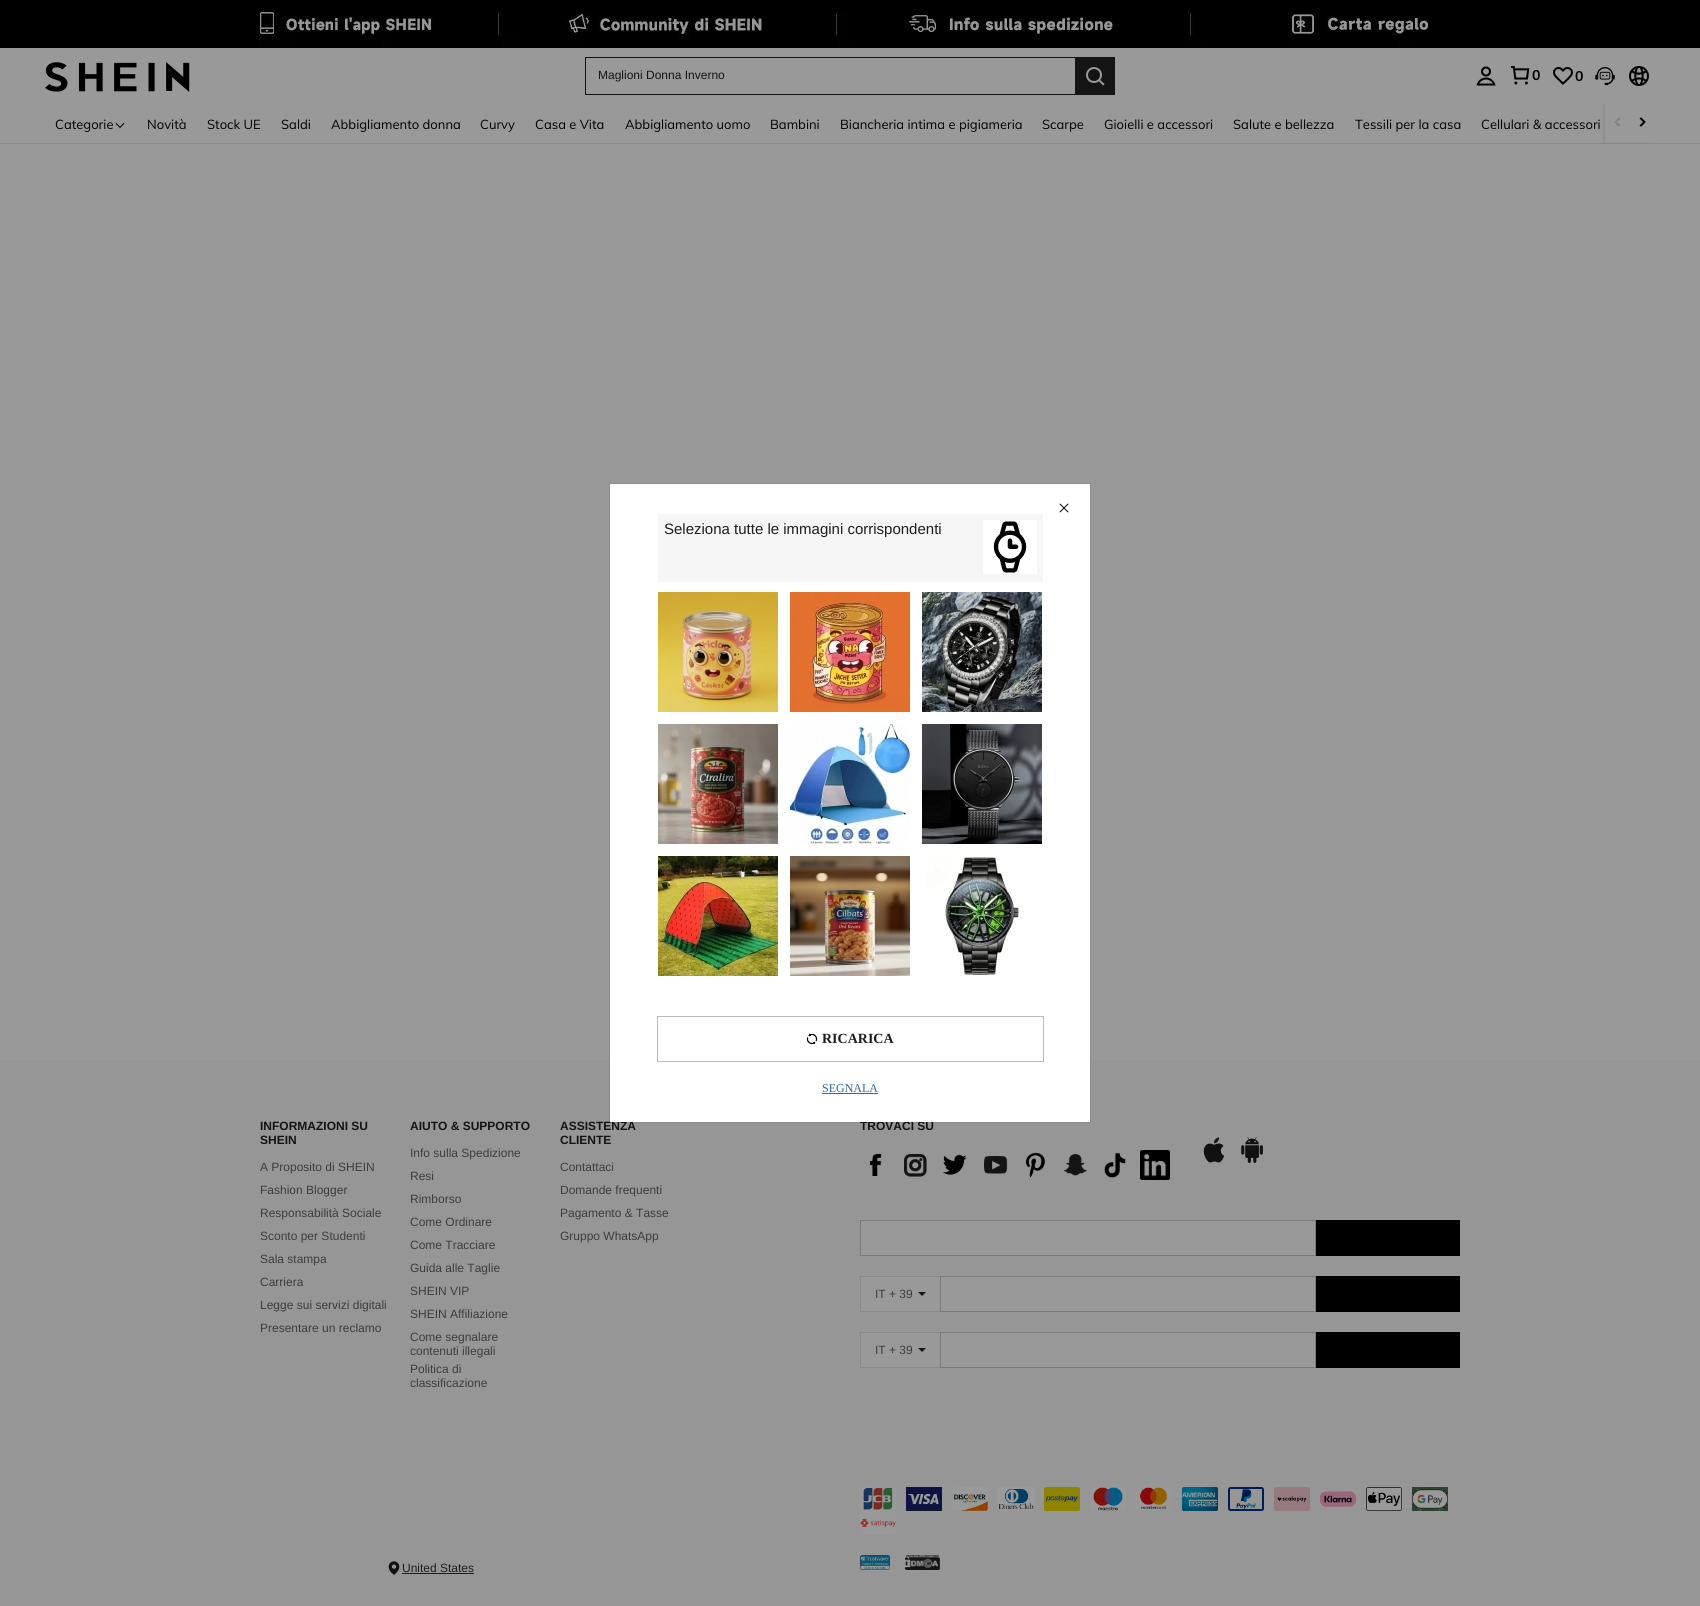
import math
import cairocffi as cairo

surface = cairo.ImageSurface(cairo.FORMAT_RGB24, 1700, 1606)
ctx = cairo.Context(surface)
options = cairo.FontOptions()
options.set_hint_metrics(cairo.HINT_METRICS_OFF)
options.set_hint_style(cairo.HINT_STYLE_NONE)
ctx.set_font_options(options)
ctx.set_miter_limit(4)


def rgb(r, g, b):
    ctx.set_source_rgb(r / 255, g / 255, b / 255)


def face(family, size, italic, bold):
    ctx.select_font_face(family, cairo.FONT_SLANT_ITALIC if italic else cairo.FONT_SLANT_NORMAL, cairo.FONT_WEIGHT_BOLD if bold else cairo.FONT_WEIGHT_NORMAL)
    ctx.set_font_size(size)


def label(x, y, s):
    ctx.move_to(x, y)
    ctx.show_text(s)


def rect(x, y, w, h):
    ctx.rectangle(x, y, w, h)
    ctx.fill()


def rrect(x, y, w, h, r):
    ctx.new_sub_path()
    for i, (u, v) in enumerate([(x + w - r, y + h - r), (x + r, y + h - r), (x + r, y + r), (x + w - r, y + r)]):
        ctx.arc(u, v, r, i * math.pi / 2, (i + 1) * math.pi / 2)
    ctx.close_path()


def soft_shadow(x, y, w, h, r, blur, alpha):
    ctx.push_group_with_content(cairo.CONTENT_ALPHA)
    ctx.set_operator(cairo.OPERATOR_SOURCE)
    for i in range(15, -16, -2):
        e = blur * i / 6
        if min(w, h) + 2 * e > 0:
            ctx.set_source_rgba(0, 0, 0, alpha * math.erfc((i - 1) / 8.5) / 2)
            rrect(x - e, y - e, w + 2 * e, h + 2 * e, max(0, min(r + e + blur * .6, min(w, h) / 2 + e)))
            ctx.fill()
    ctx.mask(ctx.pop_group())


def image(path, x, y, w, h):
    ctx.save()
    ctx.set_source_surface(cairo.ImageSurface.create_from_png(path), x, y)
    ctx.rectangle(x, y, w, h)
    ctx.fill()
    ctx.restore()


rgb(153, 153, 153)
ctx.paint()
image('image0.png', 0, 0, 1700, 48)
rgb(137, 137, 137)
rect(0, 143, 1700, 1)
rgb(0, 0, 0)
soft_shadow(1603, 104, 50, 39, 0, 1.5, 0.08)
rgb(153, 153, 153)
rect(1603, 103, 50, 1)
image('image1.png', 45, 62, 145, 30)
rgb(20, 20, 20)
rect(585, 57, 490, 1)
rect(585, 94, 490, 1)
rect(585, 57, 1, 38)
face('Liberation Sans', 12, 0, 0)
label(598, 79, 'Maglioni Donna Inverno')
rect(1075, 57, 40, 38)
image('image2.png', 1086, 67, 19, 19)
image('image3.png', 1476, 66, 20, 20)
image('image4.png', 1511, 66, 19, 19)
face('Muli', 14, 0, 1)
rgb(0, 0, 0)
label(1532, 80, '0')
image('image5.png', 1553, 67, 20, 18)
label(1575, 81, '0')
image('image6.png', 1595, 67, 20, 19)
image('image7.png', 1629, 66, 20, 20)
face('Muli', 13, 0, 0)
label(55, 129, 'Categorie')
image('image8.png', 115, 123, 10, 5)
label(147, 129, 'Novità')
label(207, 129, 'Stock UE')
label(281, 129, 'Saldi')
label(331, 129, 'Abbigliamento donna')
label(480, 129, 'Curvy')
label(535, 129, 'Casa e Vita')
label(625, 129, 'Abbigliamento uomo')
label(770, 129, 'Bambini')
label(840, 129, 'Biancheria intima e pigiameria')
label(1042, 129, 'Scarpe')
label(1104, 129, 'Gioielli e accessori')
label(1233, 129, 'Salute e bellezza')
label(1355, 129, 'Tessili per la casa')
label(1481, 129, 'Cellulari & accessori')
rgb(153, 153, 153)
rect(1605, 104, 49, 39)
image('image9.png', 1614, 117, 7, 10)
image('image10.png', 1639, 117, 7, 10)
rgb(150, 150, 150)
rect(0, 1060, 1700, 546)
face('Liberation Sans', 12, 0, 1)
rgb(20, 20, 20)
label(260, 1130, 'INFORMAZIONI SU')
label(260, 1144, 'SHEIN')
face('Liberation Sans', 12, 0, 0)
rgb(61, 61, 61)
label(260, 1171, 'A Proposito di SHEIN')
label(260, 1194, 'Fashion Blogger')
label(260, 1217, 'Responsabilità Sociale')
label(260, 1240, 'Sconto per Studenti')
label(260, 1263, 'Sala stampa')
label(260, 1286, 'Carriera')
label(260, 1309, 'Legge sui servizi digitali')
label(260, 1332, 'Presentare un reclamo')
face('Liberation Sans', 12, 0, 1)
rgb(20, 20, 20)
label(410, 1130, 'AIUTO & SUPPORTO')
face('Liberation Sans', 12, 0, 0)
rgb(61, 61, 61)
label(410, 1157, 'Info sulla Spedizione')
label(410, 1180, 'Resi')
label(410, 1203, 'Rimborso')
label(410, 1226, 'Come Ordinare')
label(410, 1249, 'Come Tracciare')
label(410, 1272, 'Guida alle Taglie')
label(410, 1295, 'SHEIN VIP')
label(410, 1318, 'SHEIN Affiliazione')
label(410, 1341, 'Come segnalare')
label(410, 1355, 'contenuti illegali')
label(410, 1373, 'Politica di')
label(410, 1387, 'classificazione')
face('Liberation Sans', 12, 0, 1)
rgb(20, 20, 20)
label(560, 1130, 'ASSISTENZA')
label(560, 1144, 'CLIENTE')
face('Liberation Sans', 12, 0, 0)
rgb(61, 61, 61)
label(560, 1171, 'Contattaci')
label(560, 1194, 'Domande frequenti')
label(560, 1217, 'Pagamento & Tasse')
label(560, 1240, 'Gruppo WhatsApp')
face('Liberation Sans', 12, 0, 1)
rgb(20, 20, 20)
label(860, 1130, 'TROVACI SU')
image('image11.png', 870, 1154, 12, 22)
image('image12.png', 904, 1154, 23, 23)
image('image13.png', 942, 1154, 25, 21)
image('image14.png', 984, 1156, 24, 18)
image('image15.png', 1026, 1152, 20, 26)
image('image16.png', 1064, 1154, 23, 22)
image('image17.png', 1104, 1153, 22, 25)
image('image18.png', 1140, 1150, 30, 30)
image('image19.png', 1203, 1137, 22, 26)
image('image20.png', 1241, 1137, 22, 26)
rgb(153, 153, 153)
ctx.rectangle(860.5, 1220.5, 455, 35)
ctx.fill_preserve()
rgb(122, 122, 122)
ctx.set_line_width(1)
ctx.stroke()
rgb(0, 0, 0)
rect(1316, 1220, 144, 36)
rgb(153, 153, 153)
rect(861, 1277, 79, 34)
rgb(137, 137, 137)
rect(860, 1276, 80, 1)
rect(860, 1311, 80, 1)
rect(860, 1276, 1, 36)
face('Liberation Sans', 12, 0, 0)
rgb(61, 61, 61)
label(875, 1298, 'IT + 39')
rgb(20, 20, 20)
ctx.new_path()
ctx.move_to(918, 1292)
ctx.line_to(926, 1292)
ctx.line_to(922, 1296)
ctx.close_path()
ctx.fill()
rgb(153, 153, 153)
ctx.rectangle(940.5, 1276.5, 375, 35)
ctx.fill_preserve()
rgb(122, 122, 122)
ctx.stroke()
rgb(0, 0, 0)
rect(1316, 1276, 144, 36)
rgb(153, 153, 153)
rect(861, 1333, 79, 34)
rgb(137, 137, 137)
rect(860, 1332, 80, 1)
rect(860, 1367, 80, 1)
rect(860, 1332, 1, 36)
rgb(61, 61, 61)
label(875, 1354, 'IT + 39')
rgb(20, 20, 20)
ctx.new_path()
ctx.move_to(918, 1348)
ctx.line_to(926, 1348)
ctx.line_to(922, 1352)
ctx.close_path()
ctx.fill()
rgb(153, 153, 153)
ctx.rectangle(940.5, 1332.5, 375, 35)
ctx.fill_preserve()
rgb(122, 122, 122)
ctx.stroke()
rgb(0, 0, 0)
rect(1316, 1332, 144, 36)
image('image21.png', 860, 1487, 36, 24)
image('image22.png', 906, 1487, 36, 24)
image('image23.png', 952, 1487, 36, 24)
image('image24.png', 998, 1487, 36, 24)
image('image25.png', 1044, 1487, 36, 24)
image('image26.png', 1090, 1487, 36, 24)
image('image27.png', 1136, 1487, 36, 24)
image('image28.png', 1182, 1487, 36, 24)
image('image29.png', 1228, 1487, 36, 24)
image('image30.png', 1274, 1487, 36, 24)
image('image31.png', 1320, 1491, 36, 16)
image('image32.png', 1366, 1487, 36, 24)
image('image33.png', 1412, 1487, 36, 24)
image('image34.png', 860, 1511, 36, 24)
image('image35.png', 388, 1561, 12, 14)
rgb(30, 30, 30)
label(402, 1572, 'United States')
rect(402, 1573, 72, 1)
image('image36.png', 860, 1555, 30, 15)
image('image37.png', 905, 1555, 35, 15)
rgb(0, 0, 0)
soft_shadow(610, 484, 480, 638, 0, 0.5, 0.3)
rgb(255, 255, 255)
rect(610, 484, 480, 638)
image('image38.png', 1059, 503, 10, 10)
rgb(246, 246, 246)
rect(658, 514, 385, 68)
face('Liberation Sans', 15, 0, 0)
rgb(30, 30, 30)
label(664, 534, 'Seleziona tutte le immagini corrispondenti')
rgb(255, 255, 255)
rect(983, 520, 54, 54)
image('image39.png', 993, 521, 34, 52)
image('image40.png', 658, 592, 120, 120)
image('image41.png', 790, 592, 120, 120)
image('image42.png', 922, 592, 120, 120)
image('image43.png', 658, 724, 120, 120)
image('image44.png', 790, 724, 120, 120)
image('image45.png', 922, 724, 120, 120)
image('image46.png', 658, 856, 120, 120)
image('image47.png', 790, 856, 120, 120)
image('image48.png', 926, 856, 93, 120)
ctx.rectangle(657.5, 1016.5, 386, 45)
rgb(187, 187, 187)
ctx.stroke()
image('image49.png', 806, 1033, 12, 12)
face('Liberation Serif', 14, 0, 1)
rgb(30, 30, 30)
label(822, 1043, 'RICARICA')
face('Liberation Serif', 12, 0, 0)
rgb(45, 104, 168)
label(822, 1092, 'SEGNALA')
rect(822, 1093, 56, 1)
surface.write_to_png('render.png')
